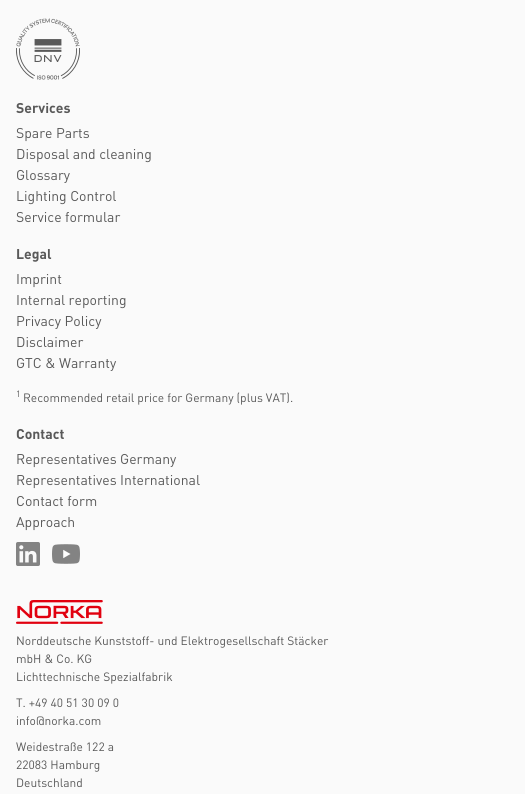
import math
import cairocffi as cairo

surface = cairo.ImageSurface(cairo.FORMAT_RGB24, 525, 794)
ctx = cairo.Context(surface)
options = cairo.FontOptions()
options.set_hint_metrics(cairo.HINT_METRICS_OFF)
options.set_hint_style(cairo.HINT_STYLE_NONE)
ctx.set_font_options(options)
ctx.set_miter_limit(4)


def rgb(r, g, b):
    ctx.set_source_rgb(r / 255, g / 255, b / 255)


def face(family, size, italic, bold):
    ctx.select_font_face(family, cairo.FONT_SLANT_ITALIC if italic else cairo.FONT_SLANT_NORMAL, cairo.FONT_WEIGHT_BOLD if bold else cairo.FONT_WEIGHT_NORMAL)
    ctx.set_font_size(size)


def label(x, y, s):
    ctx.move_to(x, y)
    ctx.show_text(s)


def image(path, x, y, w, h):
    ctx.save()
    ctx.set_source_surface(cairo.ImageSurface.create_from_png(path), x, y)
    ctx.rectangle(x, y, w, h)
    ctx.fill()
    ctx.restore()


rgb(250, 250, 250)
ctx.paint()
image('image0.png', 16, 18, 64, 62)
face('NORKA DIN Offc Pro', 14, 0, 1)
rgb(89, 89, 89)
label(16, 113, 'Services')
face('NORKA DIN Offc Pro', 14, 0, 0)
label(16, 138, 'Spare Parts')
label(16, 159, 'Disposal and cleaning')
label(16, 180, 'Glossary')
label(16, 201, 'Lighting Control')
label(16, 222, 'Service formular')
face('NORKA DIN Offc Pro', 14, 0, 1)
label(16, 259, 'Legal')
face('NORKA DIN Offc Pro', 14, 0, 0)
label(16, 284, 'Imprint')
label(16, 305, 'Internal reporting')
label(16, 326, 'Privacy Policy')
label(16, 347, 'Disclaimer')
label(16, 368, 'GTC & Warranty')
face('NORKA DIN Offc Pro', 9, 0, 0)
label(16, 397, '1')
face('NORKA DIN Offc Pro', 12, 0, 0)
label(23, 402, 'Recommended retail price for Germany (plus VAT).')
face('NORKA DIN Offc Pro', 14, 0, 1)
label(16, 439, 'Contact')
face('NORKA DIN Offc Pro', 14, 0, 0)
label(16, 464, 'Representatives Germany')
label(16, 485, 'Representatives International')
label(16, 506, 'Contact form')
label(16, 527, 'Approach')
image('image1.png', 16, 542, 24, 24)
image('image2.png', 52, 544, 28, 20)
image('image3.png', 16, 600, 87, 24)
face('NORKA DIN Offc Pro', 12, 0, 0)
label(16, 645, 'Norddeutsche Kunststoff- und Elektrogesellschaft Stäcker')
label(16, 663, 'mbH & Co. KG')
label(16, 681, 'Lichttechnische Spezialfabrik')
label(16, 707, 'T. +49 40 51 30 09 0')
label(16, 725, 'info@norka.com')
label(16, 751, 'Weidestraße 122 a')
label(16, 769, '22083 Hamburg')
label(16, 787, 'Deutschland')
surface.write_to_png('render.png')
